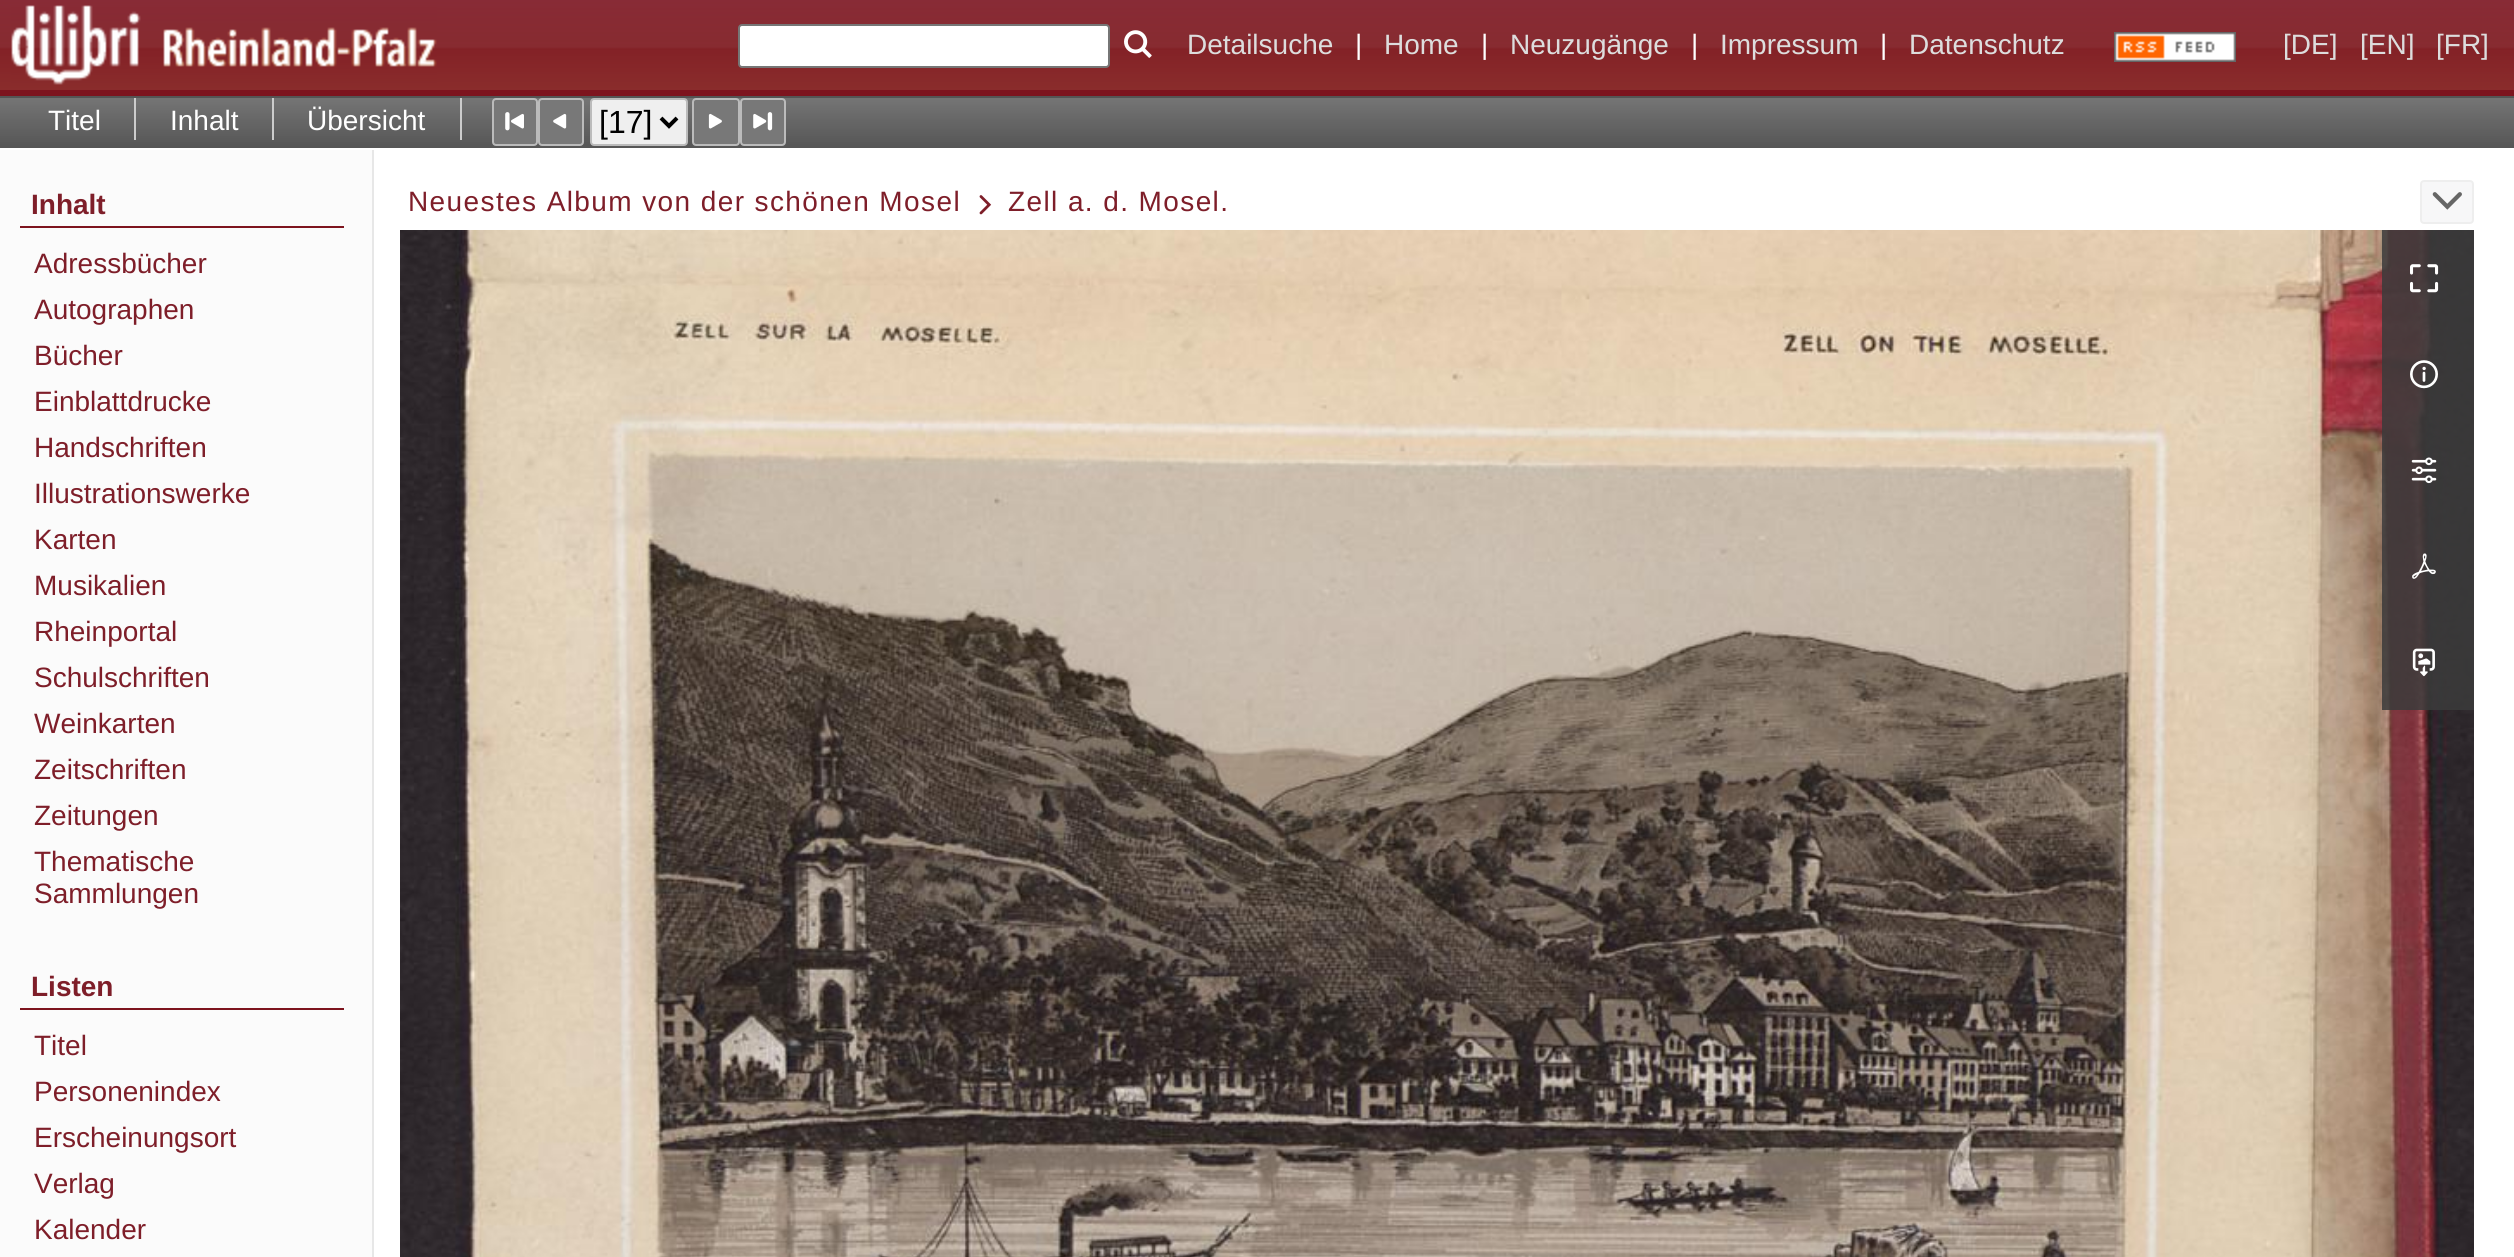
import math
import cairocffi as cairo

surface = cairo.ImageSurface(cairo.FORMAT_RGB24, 2514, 1257)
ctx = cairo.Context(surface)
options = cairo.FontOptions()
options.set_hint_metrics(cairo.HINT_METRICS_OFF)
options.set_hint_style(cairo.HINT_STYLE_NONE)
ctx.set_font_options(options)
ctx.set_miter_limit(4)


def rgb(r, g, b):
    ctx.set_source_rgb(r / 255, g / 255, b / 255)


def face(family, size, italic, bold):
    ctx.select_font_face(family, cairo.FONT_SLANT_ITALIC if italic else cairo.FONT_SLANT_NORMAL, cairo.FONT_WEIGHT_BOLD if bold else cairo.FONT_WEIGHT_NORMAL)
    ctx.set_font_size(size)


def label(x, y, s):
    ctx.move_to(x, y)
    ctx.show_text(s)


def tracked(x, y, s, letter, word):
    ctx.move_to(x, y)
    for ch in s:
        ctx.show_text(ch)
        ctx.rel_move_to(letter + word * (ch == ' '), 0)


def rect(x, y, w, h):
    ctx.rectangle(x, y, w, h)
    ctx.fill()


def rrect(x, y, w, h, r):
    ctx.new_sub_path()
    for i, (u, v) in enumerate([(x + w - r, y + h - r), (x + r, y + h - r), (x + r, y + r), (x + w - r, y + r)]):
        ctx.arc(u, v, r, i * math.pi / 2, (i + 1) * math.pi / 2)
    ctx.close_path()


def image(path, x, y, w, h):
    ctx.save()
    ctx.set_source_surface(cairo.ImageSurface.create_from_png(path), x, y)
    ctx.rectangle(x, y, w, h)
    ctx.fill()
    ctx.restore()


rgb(255, 255, 255)
ctx.paint()
rgb(125, 20, 30)
rect(0, 90, 2514, 6)
image('image0.png', 0, 0, 2514, 90)
image('image1.png', 11, 5, 426, 80)
rgb(255, 255, 255)
rrect(739, 25, 370, 42, 3)
ctx.fill_preserve()
rgb(118, 118, 118)
ctx.stroke()
image('image2.png', 1124, 30, 28, 28)
face('Liberation Sans', 28, 0, 0)
rgb(221, 221, 221)
label(1187, 54, 'Detailsuche')
rgb(255, 255, 255)
label(1355, 54, '|')
rgb(221, 221, 221)
label(1384, 54, 'Home')
rgb(255, 255, 255)
label(1481, 54, '|')
rgb(221, 221, 221)
label(1510, 54, 'Neuzugänge')
rgb(255, 255, 255)
label(1691, 54, '|')
rgb(221, 221, 221)
label(1720, 54, 'Impressum')
rgb(255, 255, 255)
label(1880, 54, '|')
rgb(221, 221, 221)
label(1909, 54, 'Datenschutz')
image('image3.png', 2114, 32, 122, 30)
label(2283, 54, '[DE]')
label(2360, 54, '[EN]')
label(2436, 54, '[FR]')
image('image4.png', 0, 98, 2514, 50)
rgb(85, 85, 85)
rect(0, 96, 2514, 2)
rgb(204, 204, 204)
rect(134, 98, 2, 42)
rgb(255, 255, 255)
label(48, 130, 'Titel')
rgb(204, 204, 204)
rect(272, 98, 2, 42)
rgb(255, 255, 255)
label(170, 130, 'Inhalt')
rgb(204, 204, 204)
rect(460, 98, 2, 42)
rgb(255, 255, 255)
label(307, 130, 'Übersicht')
rgb(120, 120, 120)
rrect(493, 99, 44, 46, 3)
ctx.fill_preserve()
rgb(187, 187, 187)
ctx.stroke()
image('image5.png', 505, 112, 19, 19)
rgb(120, 120, 120)
rrect(539, 99, 44, 46, 3)
ctx.fill_preserve()
rgb(187, 187, 187)
ctx.stroke()
image('image6.png', 553, 113, 14, 16)
rgb(239, 239, 239)
rrect(591, 99, 96, 46, 3)
ctx.fill_preserve()
rgb(187, 187, 187)
ctx.stroke()
ctx.new_path()
ctx.move_to(661, 118)
ctx.line_to(669, 126)
ctx.line_to(677, 118)
rgb(0, 0, 0)
ctx.set_line_width(4)
ctx.stroke()
face('Liberation Sans', 32, 0, 0)
label(599, 133, '[17]')
rgb(120, 120, 120)
rrect(693, 99, 46, 46, 3)
ctx.fill_preserve()
rgb(187, 187, 187)
ctx.set_line_width(2)
ctx.stroke()
image('image7.png', 708, 113, 14, 16)
rgb(120, 120, 120)
rrect(741, 99, 44, 46, 3)
ctx.fill_preserve()
rgb(187, 187, 187)
ctx.stroke()
image('image8.png', 753, 112, 20, 19)
rgb(251, 251, 251)
rect(0, 150, 372, 1107)
rgb(231, 231, 231)
rect(372, 150, 2, 1107)
rgb(125, 20, 30)
rect(20, 226, 324, 2)
face('Liberation Sans', 28, 0, 1)
rgb(126, 30, 41)
label(31, 214, 'Inhalt')
face('Liberation Sans', 28, 0, 0)
label(34, 273, 'Adressbücher')
label(34, 319, 'Autographen')
label(34, 365, 'Bücher')
label(34, 411, 'Einblattdrucke')
label(34, 457, 'Handschriften')
label(34, 503, 'Illustrationswerke')
label(34, 549, 'Karten')
label(34, 595, 'Musikalien')
label(34, 641, 'Rheinportal')
label(34, 687, 'Schulschriften')
label(34, 733, 'Weinkarten')
label(34, 779, 'Zeitschriften')
label(34, 825, 'Zeitungen')
label(34, 871, 'Thematische')
label(34, 903, 'Sammlungen')
rgb(125, 20, 30)
rect(20, 1008, 324, 2)
face('Liberation Sans', 28, 0, 1)
rgb(126, 30, 41)
label(31, 996, 'Listen')
face('Liberation Sans', 28, 0, 0)
label(34, 1055, 'Titel')
label(34, 1101, 'Personenindex')
label(34, 1147, 'Erscheinungsort')
label(34, 1193, 'Verlag')
label(34, 1239, 'Kalender')
tracked(408, 211, 'Neuestes Album von der schönen Mosel', 1.4, 0)
image('image9.png', 979, 195, 13, 20)
tracked(1008, 211, 'Zell a. d. Mosel.', 1.4, 0)
rgb(247, 247, 248)
rrect(2421, 181, 52, 42, 3)
ctx.fill_preserve()
rgb(238, 238, 238)
ctx.stroke()
image('image10.png', 2432, 192, 30, 18)
image('image11.png', 400, 230, 2074, 1027)
ctx.set_source_rgba(0.231, 0.231, 0.231, 0.85)
rect(2382, 230, 92, 480)
image('image12.png', 2410, 264, 29, 29)
image('image13.png', 2410, 360, 28, 29)
image('image14.png', 2411, 457, 26, 27)
image('image15.png', 2412, 553, 24, 26)
image('image16.png', 2412, 648, 23, 29)
surface.write_to_png('render.png')
